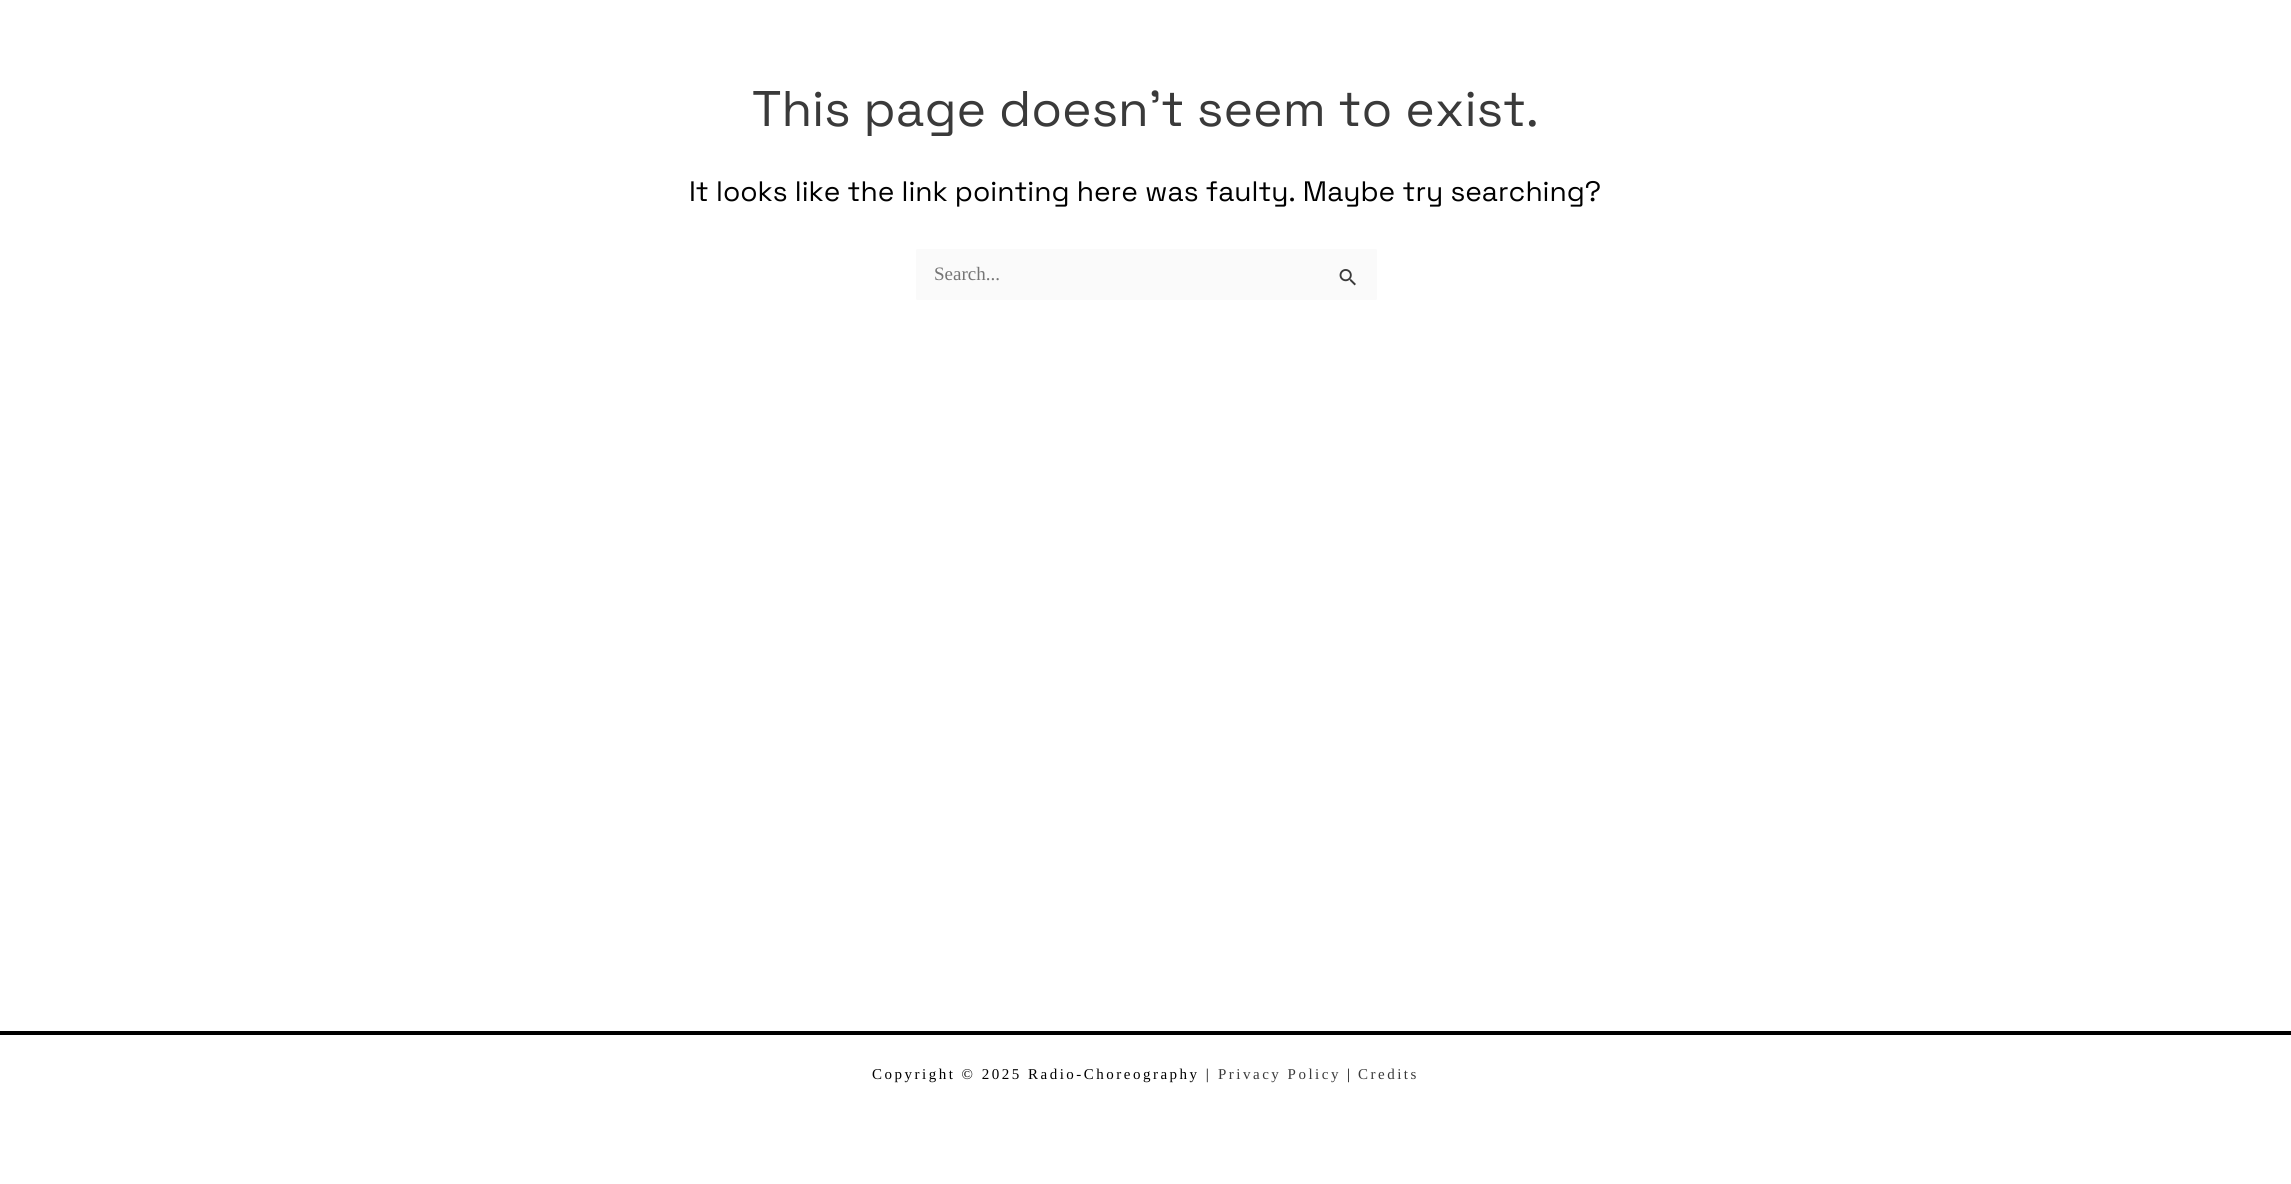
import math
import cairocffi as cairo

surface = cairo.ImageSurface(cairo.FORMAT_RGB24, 2291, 1184)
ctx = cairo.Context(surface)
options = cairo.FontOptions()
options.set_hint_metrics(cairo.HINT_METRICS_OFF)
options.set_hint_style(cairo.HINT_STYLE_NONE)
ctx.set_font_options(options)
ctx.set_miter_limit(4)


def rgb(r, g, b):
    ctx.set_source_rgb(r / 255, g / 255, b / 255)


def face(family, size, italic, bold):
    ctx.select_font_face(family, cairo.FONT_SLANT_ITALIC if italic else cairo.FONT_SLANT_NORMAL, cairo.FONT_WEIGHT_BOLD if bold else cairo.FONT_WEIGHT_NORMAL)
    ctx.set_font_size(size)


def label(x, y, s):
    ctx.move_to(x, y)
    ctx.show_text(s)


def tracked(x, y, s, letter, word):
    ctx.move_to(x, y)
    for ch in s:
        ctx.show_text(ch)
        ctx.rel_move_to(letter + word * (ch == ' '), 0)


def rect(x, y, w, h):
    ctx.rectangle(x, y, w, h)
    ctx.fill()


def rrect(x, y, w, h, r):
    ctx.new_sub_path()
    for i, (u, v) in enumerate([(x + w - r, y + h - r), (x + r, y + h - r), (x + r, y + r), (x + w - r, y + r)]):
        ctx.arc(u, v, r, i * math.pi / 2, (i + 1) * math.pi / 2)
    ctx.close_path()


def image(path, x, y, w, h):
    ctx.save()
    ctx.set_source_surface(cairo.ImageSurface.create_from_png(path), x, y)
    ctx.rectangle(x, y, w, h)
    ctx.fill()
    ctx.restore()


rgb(255, 255, 255)
ctx.paint()
face('Space Grotesk', 50, 0, 0)
rgb(58, 58, 58)
label(752, 126, 'This page doesn\'t seem to exist.')
face('Space Grotesk', 28.1, 0, 0)
rgb(0, 0, 0)
label(689, 201, 'It looks like the link pointing here was faulty. Maybe try searching?')
rgb(250, 250, 250)
rrect(915.5, 248.5, 462, 52, 2)
ctx.fill_preserve()
rgb(255, 255, 255)
ctx.set_line_width(1)
ctx.stroke()
face('Liberation Serif', 19, 0, 0)
rgb(117, 117, 117)
label(934, 280, 'Search...')
image('image0.png', 1339, 269, 17, 17)
rgb(0, 0, 0)
rect(0, 1031, 2291, 4)
face('Liberation Serif', 15, 0, 0)
tracked(872, 1079, 'Copyright © 2025 Radio-Choreography |', 2.5, 0)
rgb(58, 58, 58)
tracked(1218, 1079, 'Privacy Policy', 2.5, 0)
rgb(0, 0, 0)
tracked(1347, 1079, '|', 2.5, 0)
rgb(58, 58, 58)
tracked(1358, 1079, 'Credits', 2.5, 0)
surface.write_to_png('render.png')
